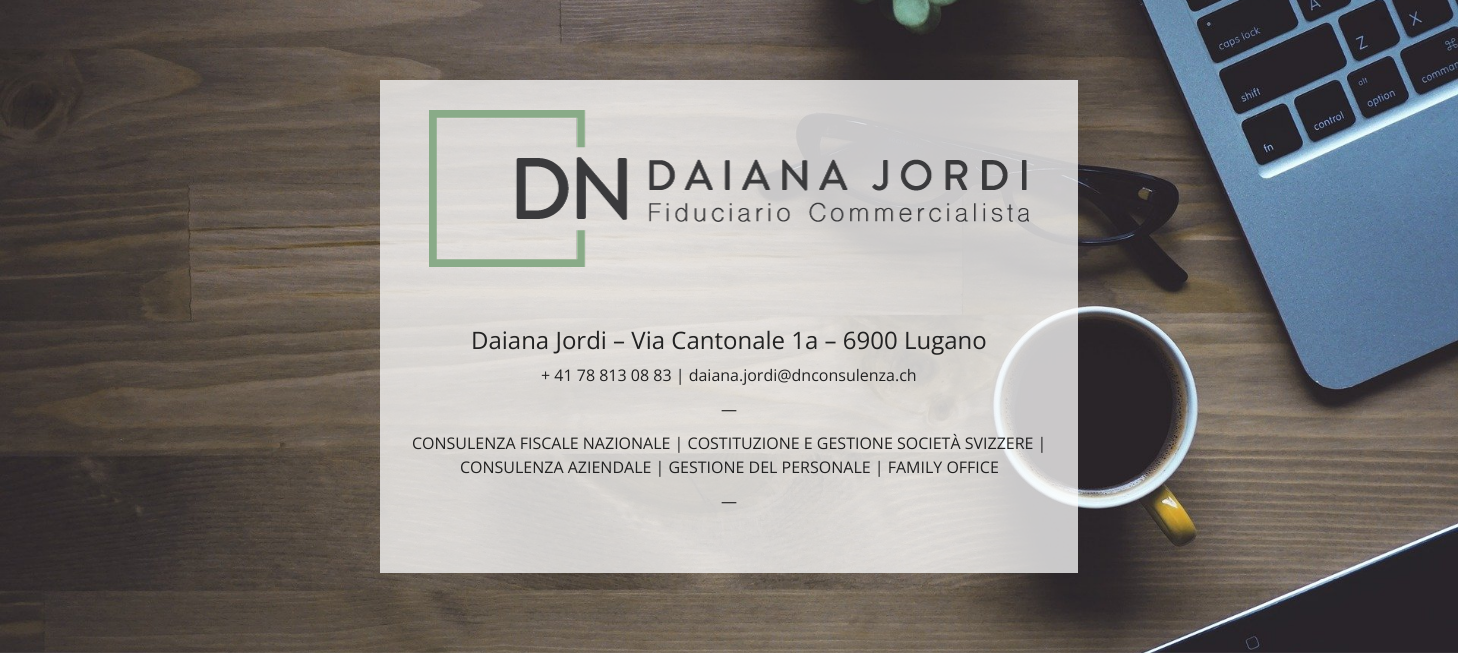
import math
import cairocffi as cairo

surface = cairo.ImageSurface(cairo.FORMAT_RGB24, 1458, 653)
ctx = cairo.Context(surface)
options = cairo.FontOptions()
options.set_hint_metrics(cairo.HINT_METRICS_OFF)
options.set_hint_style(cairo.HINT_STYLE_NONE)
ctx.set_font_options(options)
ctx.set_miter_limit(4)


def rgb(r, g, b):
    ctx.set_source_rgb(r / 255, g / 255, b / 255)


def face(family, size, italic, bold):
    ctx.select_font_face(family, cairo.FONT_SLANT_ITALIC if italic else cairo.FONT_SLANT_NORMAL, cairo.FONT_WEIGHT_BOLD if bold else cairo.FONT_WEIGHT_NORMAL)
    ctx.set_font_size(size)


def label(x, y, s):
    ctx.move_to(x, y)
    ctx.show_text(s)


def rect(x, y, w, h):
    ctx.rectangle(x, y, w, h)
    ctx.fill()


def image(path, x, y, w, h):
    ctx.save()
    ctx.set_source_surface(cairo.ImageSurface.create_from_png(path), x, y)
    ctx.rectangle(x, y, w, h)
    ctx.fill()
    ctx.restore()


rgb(255, 255, 255)
ctx.paint()
image('image0.png', 0, 0, 1458, 653)
ctx.set_source_rgba(1, 1, 1, 0.75)
rect(380, 80, 698, 493)
image('image1.png', 429, 110, 600, 157)
face('Open Sans', 24, 0, 0)
rgb(34, 34, 34)
label(471, 349, 'Daiana Jordi – Via Cantonale 1a – 6900 Lugano')
face('Open Sans', 16, 0, 0)
label(541, 381, '+ 41 78 813 08 83 | daiana.jordi@dnconsulenza.ch')
label(721, 415, '—')
label(412, 449, 'CONSULENZA FISCALE NAZIONALE | COSTITUZIONE E GESTIONE SOCIETÀ SVIZZERE |')
label(460, 473, 'CONSULENZA AZIENDALE | GESTIONE DEL PERSONALE | FAMILY OFFICE')
label(721, 507, '—')
surface.write_to_png('render.png')
